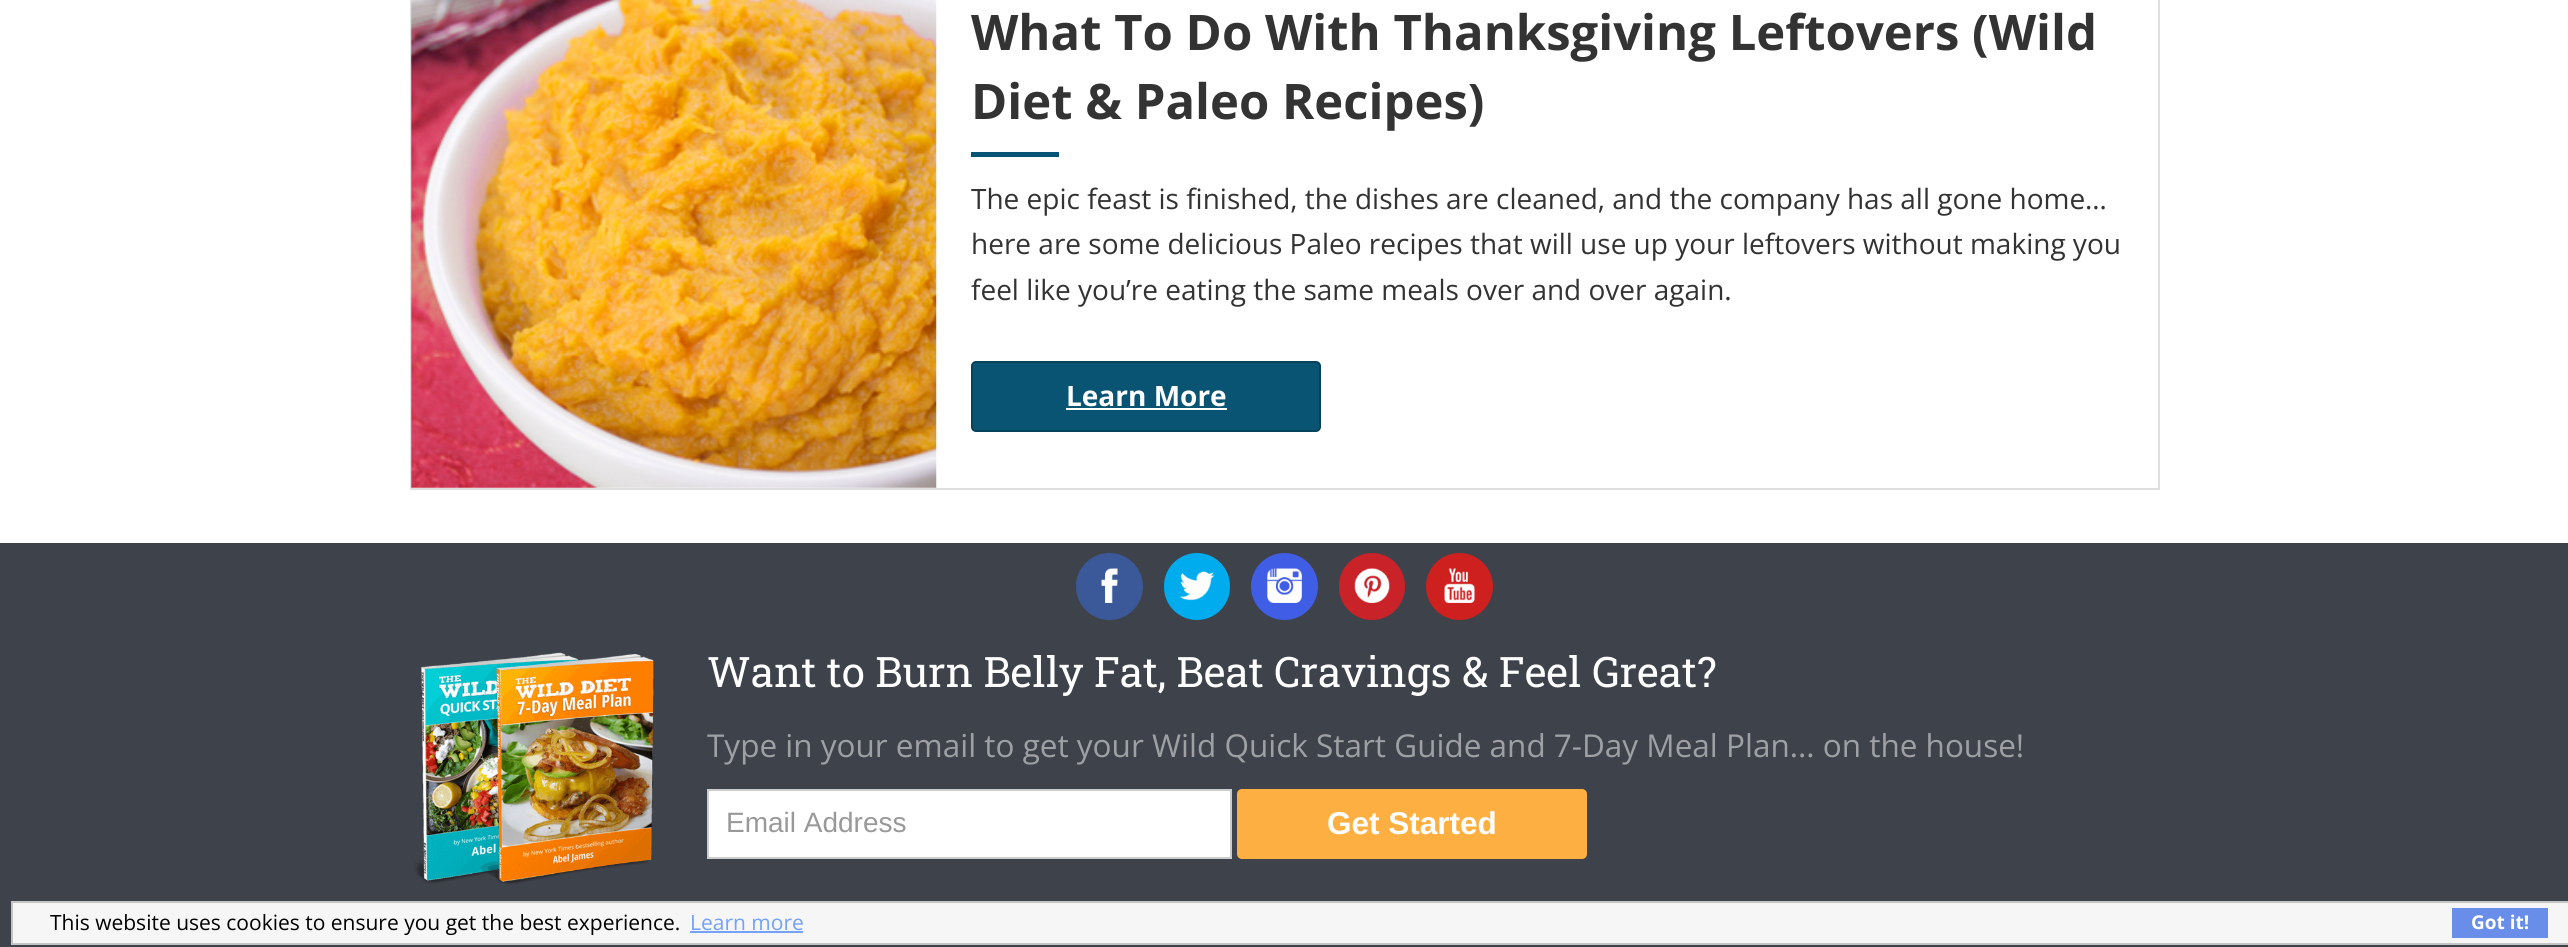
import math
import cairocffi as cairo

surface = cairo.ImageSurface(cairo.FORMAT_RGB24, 2568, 947)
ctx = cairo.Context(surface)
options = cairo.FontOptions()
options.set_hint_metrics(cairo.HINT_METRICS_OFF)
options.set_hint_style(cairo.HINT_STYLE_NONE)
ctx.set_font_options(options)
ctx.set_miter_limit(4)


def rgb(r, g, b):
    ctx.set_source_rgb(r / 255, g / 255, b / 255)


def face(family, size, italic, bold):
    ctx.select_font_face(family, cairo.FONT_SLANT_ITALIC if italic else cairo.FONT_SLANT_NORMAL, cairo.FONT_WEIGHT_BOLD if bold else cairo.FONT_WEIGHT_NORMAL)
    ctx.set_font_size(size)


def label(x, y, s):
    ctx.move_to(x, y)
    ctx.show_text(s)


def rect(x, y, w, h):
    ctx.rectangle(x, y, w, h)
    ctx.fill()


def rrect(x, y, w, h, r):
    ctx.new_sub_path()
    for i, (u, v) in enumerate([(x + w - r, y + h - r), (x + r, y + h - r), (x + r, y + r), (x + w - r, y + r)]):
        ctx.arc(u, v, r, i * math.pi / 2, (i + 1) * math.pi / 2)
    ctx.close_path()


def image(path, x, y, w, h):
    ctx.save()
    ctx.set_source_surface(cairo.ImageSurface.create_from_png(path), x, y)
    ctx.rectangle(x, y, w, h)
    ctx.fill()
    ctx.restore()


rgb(255, 255, 255)
ctx.paint()
ctx.rectangle(411, -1, 1748, 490)
rgb(224, 224, 224)
ctx.stroke()
image('image0.png', 411, 0, 526, 488)
face('Open Sans', 49, 0, 1)
rgb(51, 51, 51)
label(971, 50, 'What To Do With Thanksgiving Leftovers (Wild')
label(971, 119, 'Diet & Paleo Recipes)')
rgb(8, 84, 118)
rect(971, 152, 88, 5)
face('Open Sans', 28, 0, 0)
rgb(51, 51, 51)
label(971, 209, 'The epic feast is finished, the dishes are cleaned, and the company has all gone home…')
label(971, 254, 'here are some delicious Paleo recipes that will use up your leftovers without making you')
label(971, 300, 'feel like you’re eating the same meals over and over again.')
rgb(8, 84, 114)
rrect(972, 362, 348, 69, 4)
ctx.fill_preserve()
rgb(6, 66, 90)
ctx.stroke()
face('Open Sans', 28, 0, 1)
rgb(255, 255, 255)
label(1066, 406, 'Learn More')
rect(1066, 408, 161, 2)
rgb(62, 66, 74)
rect(0, 543, 2568, 404)
rgb(59, 89, 152)
ctx.new_path()
ctx.arc(1109.5, 586.5, 33.5, 0, 2 * math.pi)
ctx.fill()
image('image1.png', 1101, 568, 17, 35)
rgb(0, 172, 237)
rrect(1164, 553, 66, 67, 33)
ctx.fill()
image('image2.png', 1180, 571, 35, 30)
rgb(64, 93, 230)
ctx.arc(1284.5, 586.5, 33.5, 0, 2 * math.pi)
ctx.fill()
image('image3.png', 1267, 568, 35, 35)
rgb(201, 34, 40)
rrect(1339, 553, 66, 67, 33)
ctx.fill()
image('image4.png', 1354, 568, 36, 35)
rgb(205, 32, 31)
ctx.arc(1459.5, 586.5, 33.5, 0, 2 * math.pi)
ctx.fill()
image('image5.png', 1444, 568, 31, 35)
image('image6.png', 414, 652, 240, 233)
face('Roboto Slab', 42, 0, 0)
rgb(255, 255, 255)
label(707, 687, 'Want to Burn Belly Fat, Beat Cravings & Feel Great?')
face('Open Sans', 31.5, 0, 0)
rgb(158, 160, 164)
label(707, 757, 'Type in your email to get your Wild Quick Start Guide and 7-Day Meal Plan... on the house!')
rgb(255, 255, 255)
ctx.rectangle(708, 790, 523, 68)
ctx.fill_preserve()
rgb(204, 204, 204)
ctx.stroke()
face('Liberation Sans', 28, 0, 0)
rgb(153, 153, 153)
label(726, 832, 'Email Address')
rgb(253, 176, 65)
rrect(1237, 789, 350, 70, 5)
ctx.fill()
face('Liberation Sans', 31.5, 0, 1)
rgb(255, 255, 255)
label(1327, 834, 'Get Started')
rgb(246, 246, 246)
ctx.rectangle(12, 902, 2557, 42)
ctx.fill_preserve()
rgb(196, 196, 196)
ctx.stroke()
face('Open Sans', 21, 0, 0)
rgb(0, 0, 0)
label(50, 930, 'This website uses cookies to ensure you get the best experience.')
rgb(116, 161, 249)
label(690, 930, 'Learn more')
rect(690, 931, 113, 2)
rgb(104, 142, 233)
rect(2452, 908, 96, 30)
face('Open Sans', 19, 0, 1)
rgb(255, 255, 255)
label(2471, 929, 'Got it!')
surface.write_to_png('render.png')
